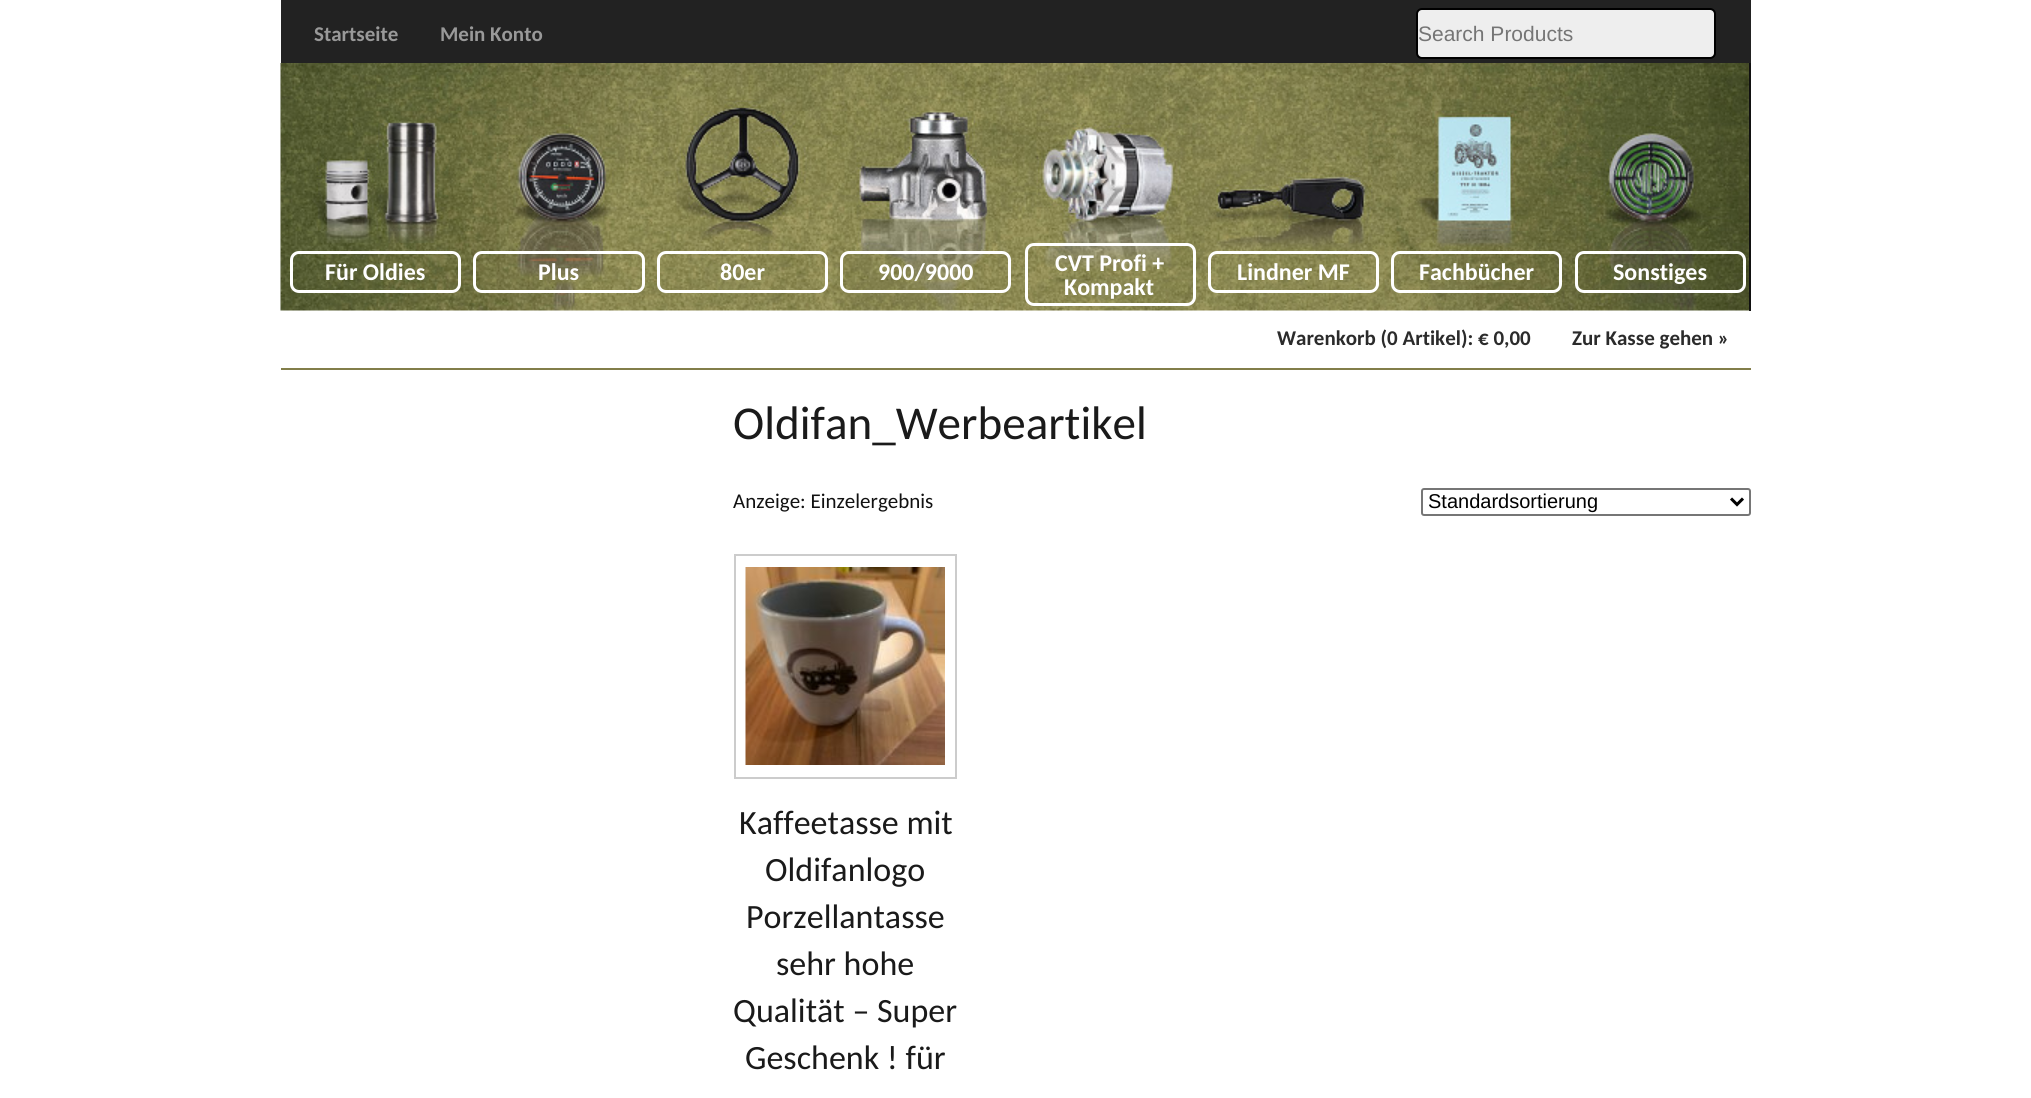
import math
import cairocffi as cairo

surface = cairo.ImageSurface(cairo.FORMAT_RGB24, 2031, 1098)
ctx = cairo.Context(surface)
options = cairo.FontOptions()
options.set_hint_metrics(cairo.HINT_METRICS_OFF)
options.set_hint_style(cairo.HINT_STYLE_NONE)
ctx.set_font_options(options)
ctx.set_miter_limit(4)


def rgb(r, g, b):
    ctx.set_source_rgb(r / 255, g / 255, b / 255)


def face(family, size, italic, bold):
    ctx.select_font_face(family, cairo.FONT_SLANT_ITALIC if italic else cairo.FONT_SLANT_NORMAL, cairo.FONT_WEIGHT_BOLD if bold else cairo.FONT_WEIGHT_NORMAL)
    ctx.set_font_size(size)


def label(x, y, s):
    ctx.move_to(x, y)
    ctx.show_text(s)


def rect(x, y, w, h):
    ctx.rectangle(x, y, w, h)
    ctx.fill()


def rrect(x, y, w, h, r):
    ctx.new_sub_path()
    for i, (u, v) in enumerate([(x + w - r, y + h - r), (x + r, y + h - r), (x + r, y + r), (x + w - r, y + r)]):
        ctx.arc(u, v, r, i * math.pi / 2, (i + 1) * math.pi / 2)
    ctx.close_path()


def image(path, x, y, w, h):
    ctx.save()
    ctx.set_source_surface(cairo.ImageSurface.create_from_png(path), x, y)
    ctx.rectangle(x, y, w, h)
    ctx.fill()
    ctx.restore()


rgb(255, 255, 255)
ctx.paint()
rgb(34, 34, 34)
rect(281, 0, 1470, 63)
face('Carlito', 21, 0, 1)
rgb(153, 153, 153)
label(314, 41, 'Startseite')
label(440, 41, 'Mein Konto')
rgb(238, 238, 238)
rrect(1417, 9, 298, 49, 5)
ctx.fill_preserve()
rgb(0, 0, 0)
ctx.stroke()
face('Liberation Sans', 21, 0, 0)
rgb(117, 117, 117)
label(1418, 41, 'Search Products')
image('image0.png', 280, 63, 1469, 248)
rgb(17, 17, 17)
rect(1749, 63, 2, 248)
rrect(291.5, 252.5, 168, 39, 7.5)
rgb(255, 255, 255)
ctx.set_line_width(3)
ctx.stroke()
face('Carlito', 24, 0, 1)
label(325, 280, 'Für Oldies')
rrect(474.5, 252.5, 169, 39, 7.5)
ctx.stroke()
label(538, 280, 'Plus')
rrect(658.5, 252.5, 168, 39, 7.5)
ctx.stroke()
label(720, 280, '80er')
rrect(841.5, 252.5, 168, 39, 7.5)
ctx.stroke()
label(878, 280, '900/9000')
rrect(1026.5, 244.5, 168, 60, 7.5)
ctx.stroke()
label(1055, 271, 'CVT Profi +')
label(1064, 295, 'Kompakt')
rrect(1209.5, 252.5, 168, 39, 7.5)
ctx.stroke()
label(1237, 280, 'Lindner MF')
rrect(1392.5, 252.5, 168, 39, 7.5)
ctx.stroke()
label(1419, 280, 'Fachbücher')
rrect(1576.5, 252.5, 168, 39, 7.5)
ctx.stroke()
label(1613, 280, 'Sonstiges')
rgb(130, 126, 74)
rect(281, 368, 1470, 2)
face('Carlito', 21, 0, 1)
rgb(43, 43, 43)
label(1277, 345, 'Warenkorb (0 Artikel): € 0,00')
label(1572, 345, 'Zur Kasse gehen »')
face('Carlito', 47.1, 0, 0)
rgb(26, 26, 26)
label(733, 439, 'Oldifan_Werbeartikel')
face('Carlito', 21, 0, 0)
rgb(17, 17, 17)
label(733, 508, 'Anzeige: Einzelergebnis')
rrect(1422, 489, 328, 26, 2)
rgb(118, 118, 118)
ctx.set_line_width(2)
ctx.stroke()
ctx.new_path()
ctx.move_to(1731, 498.5)
ctx.line_to(1737, 504.5)
ctx.line_to(1743, 498.5)
rgb(0, 0, 0)
ctx.set_line_width(3)
ctx.stroke()
face('Liberation Sans', 20, 0, 0)
label(1428, 508, 'Standardsortierung')
ctx.rectangle(735, 555, 221, 223)
rgb(204, 204, 204)
ctx.set_line_width(2)
ctx.stroke()
image('image1.png', 745, 567, 200, 198)
face('Carlito', 34, 0, 0)
rgb(26, 26, 26)
label(739, 834, 'Kaffeetasse mit')
label(765, 881, 'Oldifanlogo')
label(746, 928, 'Porzellantasse')
label(776, 975, 'sehr hohe')
label(733, 1022, 'Qualität – Super')
label(745, 1069, 'Geschenk ! für')
surface.write_to_png('render.png')
